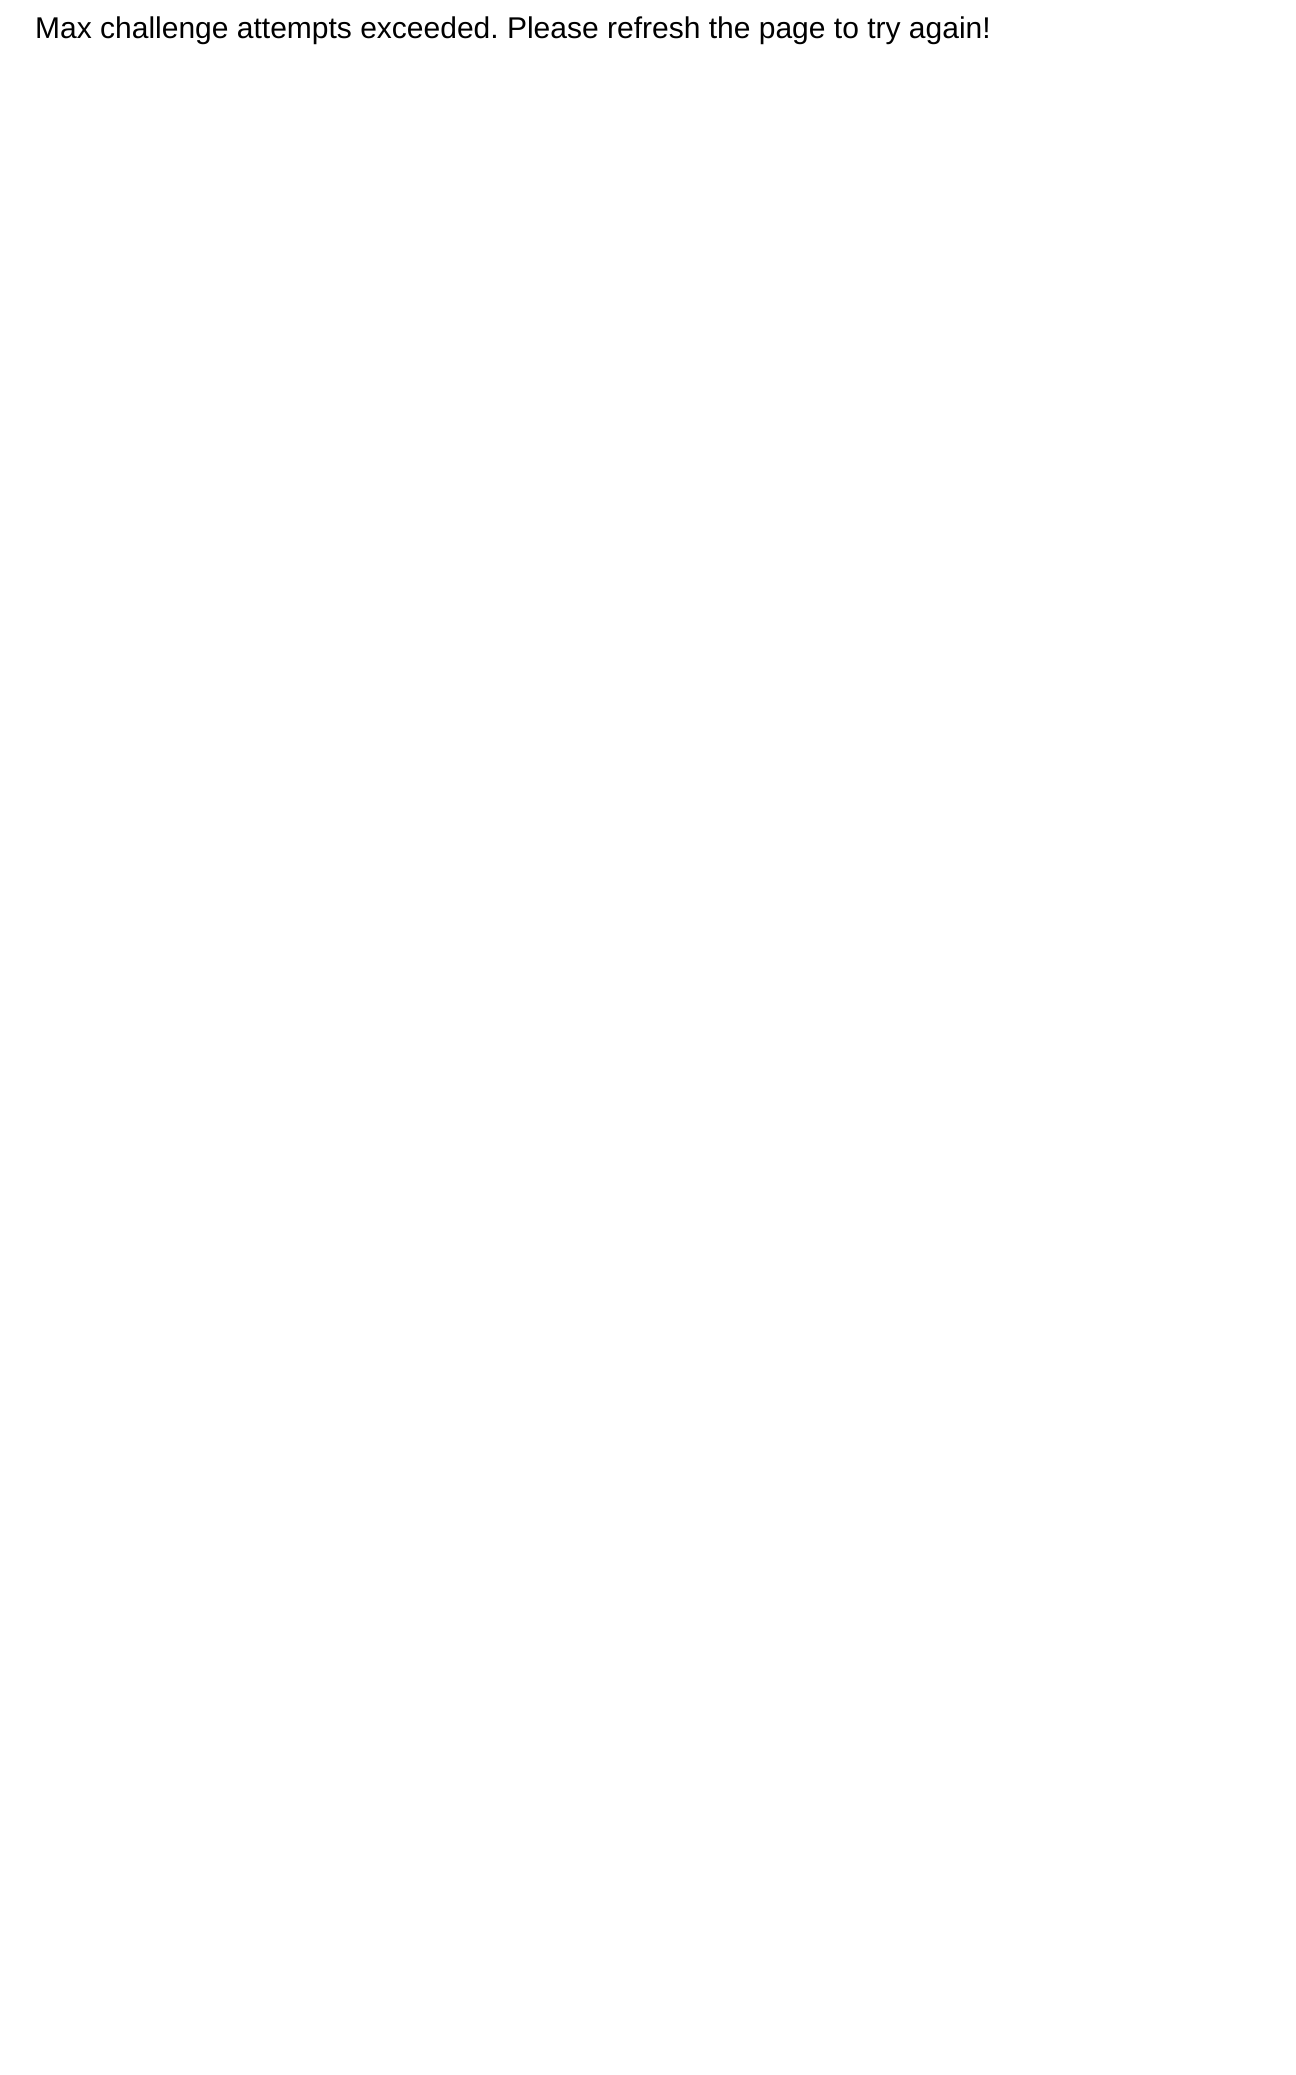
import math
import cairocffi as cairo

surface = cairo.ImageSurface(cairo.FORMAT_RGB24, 1296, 2075)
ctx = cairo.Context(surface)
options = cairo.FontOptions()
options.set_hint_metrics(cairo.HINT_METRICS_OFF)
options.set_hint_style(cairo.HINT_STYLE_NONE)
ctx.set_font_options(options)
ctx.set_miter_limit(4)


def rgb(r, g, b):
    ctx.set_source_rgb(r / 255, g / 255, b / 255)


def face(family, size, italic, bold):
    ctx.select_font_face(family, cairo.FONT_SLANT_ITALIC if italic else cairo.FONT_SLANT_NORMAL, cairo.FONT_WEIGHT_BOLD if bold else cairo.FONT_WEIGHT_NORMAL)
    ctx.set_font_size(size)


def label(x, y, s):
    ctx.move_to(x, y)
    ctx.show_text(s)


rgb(255, 255, 255)
ctx.paint()
face('Liberation Sans', 30, 0, 0)
rgb(0, 0, 0)
label(35, 38, 'Max challenge attempts exceeded. Please refresh the page to try again!')
surface.write_to_png('render.png')
